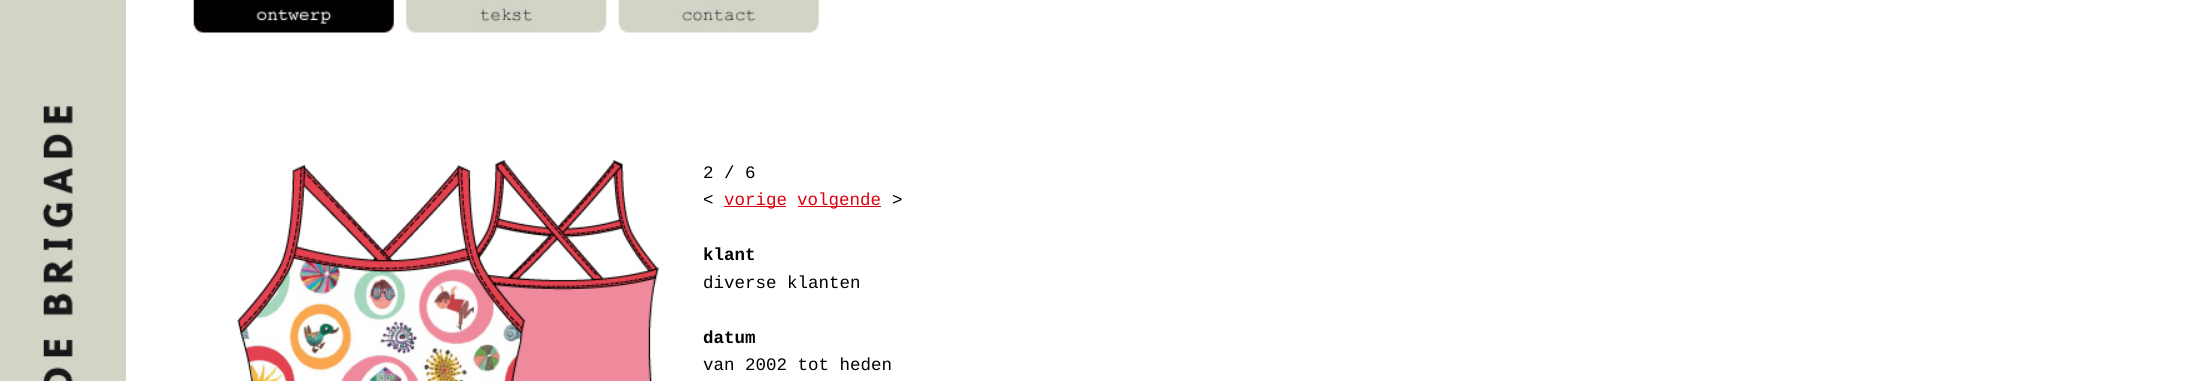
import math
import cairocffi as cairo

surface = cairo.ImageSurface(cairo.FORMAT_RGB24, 2191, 381)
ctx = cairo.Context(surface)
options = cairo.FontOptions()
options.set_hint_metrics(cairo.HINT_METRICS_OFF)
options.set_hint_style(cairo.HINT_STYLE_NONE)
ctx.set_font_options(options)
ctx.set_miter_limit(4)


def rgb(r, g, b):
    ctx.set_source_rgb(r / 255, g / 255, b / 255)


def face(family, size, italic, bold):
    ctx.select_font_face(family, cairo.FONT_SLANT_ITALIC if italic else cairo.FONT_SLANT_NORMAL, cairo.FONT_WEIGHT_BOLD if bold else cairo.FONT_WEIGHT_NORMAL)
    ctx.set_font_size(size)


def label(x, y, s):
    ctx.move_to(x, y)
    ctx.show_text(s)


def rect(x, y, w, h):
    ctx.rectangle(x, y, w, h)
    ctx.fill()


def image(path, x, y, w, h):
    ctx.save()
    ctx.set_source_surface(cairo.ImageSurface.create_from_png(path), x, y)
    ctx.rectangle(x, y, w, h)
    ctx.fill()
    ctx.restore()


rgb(255, 255, 255)
ctx.paint()
rgb(209, 213, 198)
rect(0, 0, 126, 381)
image('image0.png', 193, 0, 201, 33)
image('image1.png', 406, 0, 201, 33)
image('image2.png', 618, 0, 201, 33)
image('image3.png', 42, 106, 31, 275)
image('image4.png', 237, 159, 422, 222)
face('Liberation Mono', 17.5, 0, 0)
rgb(0, 0, 0)
label(703, 178, '2 / 6')
label(703, 205, '<')
rgb(220, 0, 14)
rect(724, 206, 62, 1)
label(724, 205, 'vorige')
rect(798, 206, 83, 1)
label(797, 205, 'volgende')
rgb(0, 0, 0)
label(892, 205, '>')
face('Liberation Mono', 17.5, 0, 1)
label(703, 260, 'klant')
face('Liberation Mono', 17.5, 0, 0)
label(703, 288, 'diverse klanten')
face('Liberation Mono', 17.5, 0, 1)
label(703, 343, 'datum')
face('Liberation Mono', 17.5, 0, 0)
label(703, 370, 'van 2002 tot heden')
surface.write_to_png('render.png')
